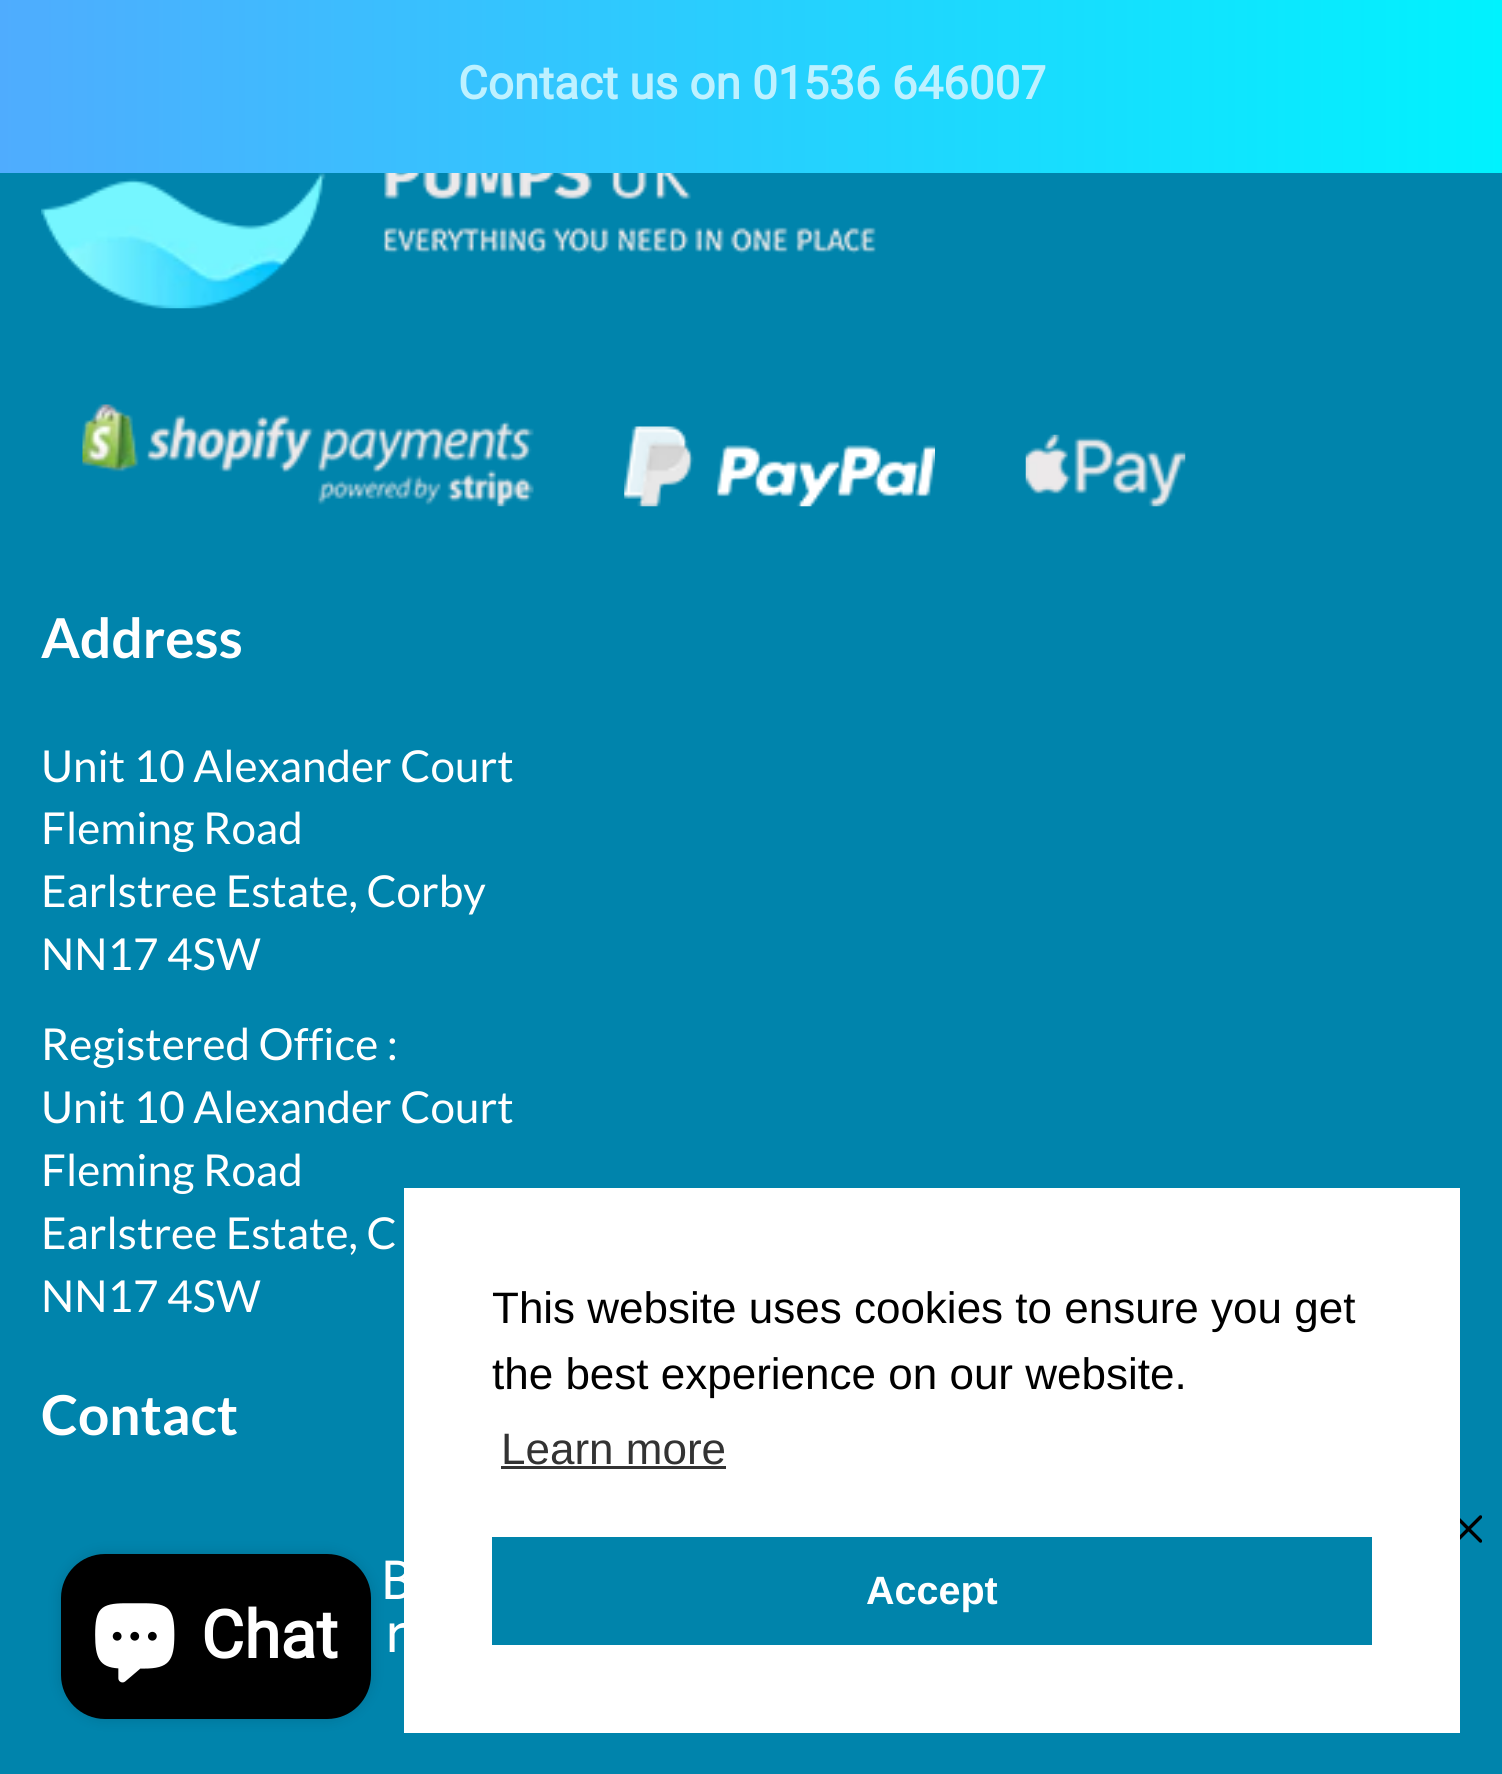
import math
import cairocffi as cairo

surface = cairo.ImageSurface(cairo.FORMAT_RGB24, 1502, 1774)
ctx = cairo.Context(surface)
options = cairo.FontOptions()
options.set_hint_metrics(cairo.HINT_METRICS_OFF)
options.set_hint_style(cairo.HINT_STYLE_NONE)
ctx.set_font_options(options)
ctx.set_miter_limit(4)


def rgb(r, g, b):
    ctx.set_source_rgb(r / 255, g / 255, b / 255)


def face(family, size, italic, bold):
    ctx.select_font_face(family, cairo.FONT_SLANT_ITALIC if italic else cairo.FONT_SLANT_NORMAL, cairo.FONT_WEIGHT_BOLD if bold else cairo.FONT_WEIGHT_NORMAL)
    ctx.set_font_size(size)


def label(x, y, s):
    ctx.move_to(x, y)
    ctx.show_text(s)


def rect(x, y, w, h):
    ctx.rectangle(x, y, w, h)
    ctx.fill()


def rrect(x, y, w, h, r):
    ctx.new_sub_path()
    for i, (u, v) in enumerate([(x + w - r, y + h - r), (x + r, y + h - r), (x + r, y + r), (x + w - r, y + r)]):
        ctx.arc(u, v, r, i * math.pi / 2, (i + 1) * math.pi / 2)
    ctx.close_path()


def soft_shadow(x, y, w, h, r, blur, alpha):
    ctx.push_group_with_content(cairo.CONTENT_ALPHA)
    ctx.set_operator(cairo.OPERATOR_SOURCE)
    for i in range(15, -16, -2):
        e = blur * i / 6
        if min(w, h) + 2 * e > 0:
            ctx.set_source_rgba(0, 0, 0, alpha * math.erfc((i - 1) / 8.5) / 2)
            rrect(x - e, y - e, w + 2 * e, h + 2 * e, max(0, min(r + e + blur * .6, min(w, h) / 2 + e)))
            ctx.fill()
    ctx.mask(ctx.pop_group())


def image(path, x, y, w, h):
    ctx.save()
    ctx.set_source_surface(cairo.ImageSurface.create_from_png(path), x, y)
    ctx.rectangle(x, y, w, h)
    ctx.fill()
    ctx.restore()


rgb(0, 132, 172)
ctx.paint()
gradient = cairo.LinearGradient(0, 87, 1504, 87)
gradient.add_color_stop_rgba(0, 0.31, 0.675, 0.996, 1)
gradient.add_color_stop_rgba(1, 0, 0.949, 0.996, 1)
ctx.set_source(gradient)
rect(0, 0, 1502, 173)
face('Roboto', 45.75, 0, 1)
rgb(190, 241, 255)
label(458, 99, 'Contact us on 01536 646007')
image('image0.png', 41, 173, 835, 136)
image('image1.png', 82, 404, 452, 103)
image('image2.png', 624, 426, 311, 81)
image('image3.png', 1025, 434, 161, 73)
face('Lato', 55, 0, 1)
rgb(255, 255, 255)
label(41, 658, 'Address')
face('Lato', 44, 0, 0)
label(41, 782, 'Unit 10 Alexander Court')
label(41, 844, 'Fleming Road')
label(41, 907, 'Earlstree Estate, Corby')
label(41, 970, 'NN17 4SW')
label(41, 1060, 'Registered Office :')
label(41, 1123, 'Unit 10 Alexander Court')
label(41, 1186, 'Fleming Road')
label(41, 1249, 'Earlstree Estate, C')
label(41, 1312, 'NN17 4SW')
face('Lato', 55, 0, 1)
label(41, 1435, 'Contact')
rect(404, 1188, 1056, 545)
face('Liberation Sans', 44, 0, 0)
rgb(0, 0, 0)
label(492, 1323, 'This website uses cookies to ensure you get')
label(492, 1389, 'the best experience on our website.')
rgb(51, 51, 51)
label(501, 1464, 'Learn more')
rect(501, 1466, 225, 3)
rgb(0, 132, 171)
rect(492, 1537, 880, 108)
face('Liberation Sans', 39.5, 0, 1)
rgb(255, 255, 255)
label(866, 1604, 'Accept')
rgb(0, 0, 0)
soft_shadow(61, 1554, 310, 165, 44, 7, 0.15)
rgb(0, 0, 0)
rrect(61, 1554, 310, 165, 44)
ctx.fill()
image('image4.png', 95, 1603, 80, 80)
face('Roboto', 66, 0, 1)
rgb(255, 255, 255)
label(201, 1658, 'Chat')
image('image5.png', 1460, 1515, 22, 28)
face('Roboto Mono', 54, 0, 0)
label(381, 1599, 'B')
label(381, 1652, 'r')
surface.write_to_png('render.png')
